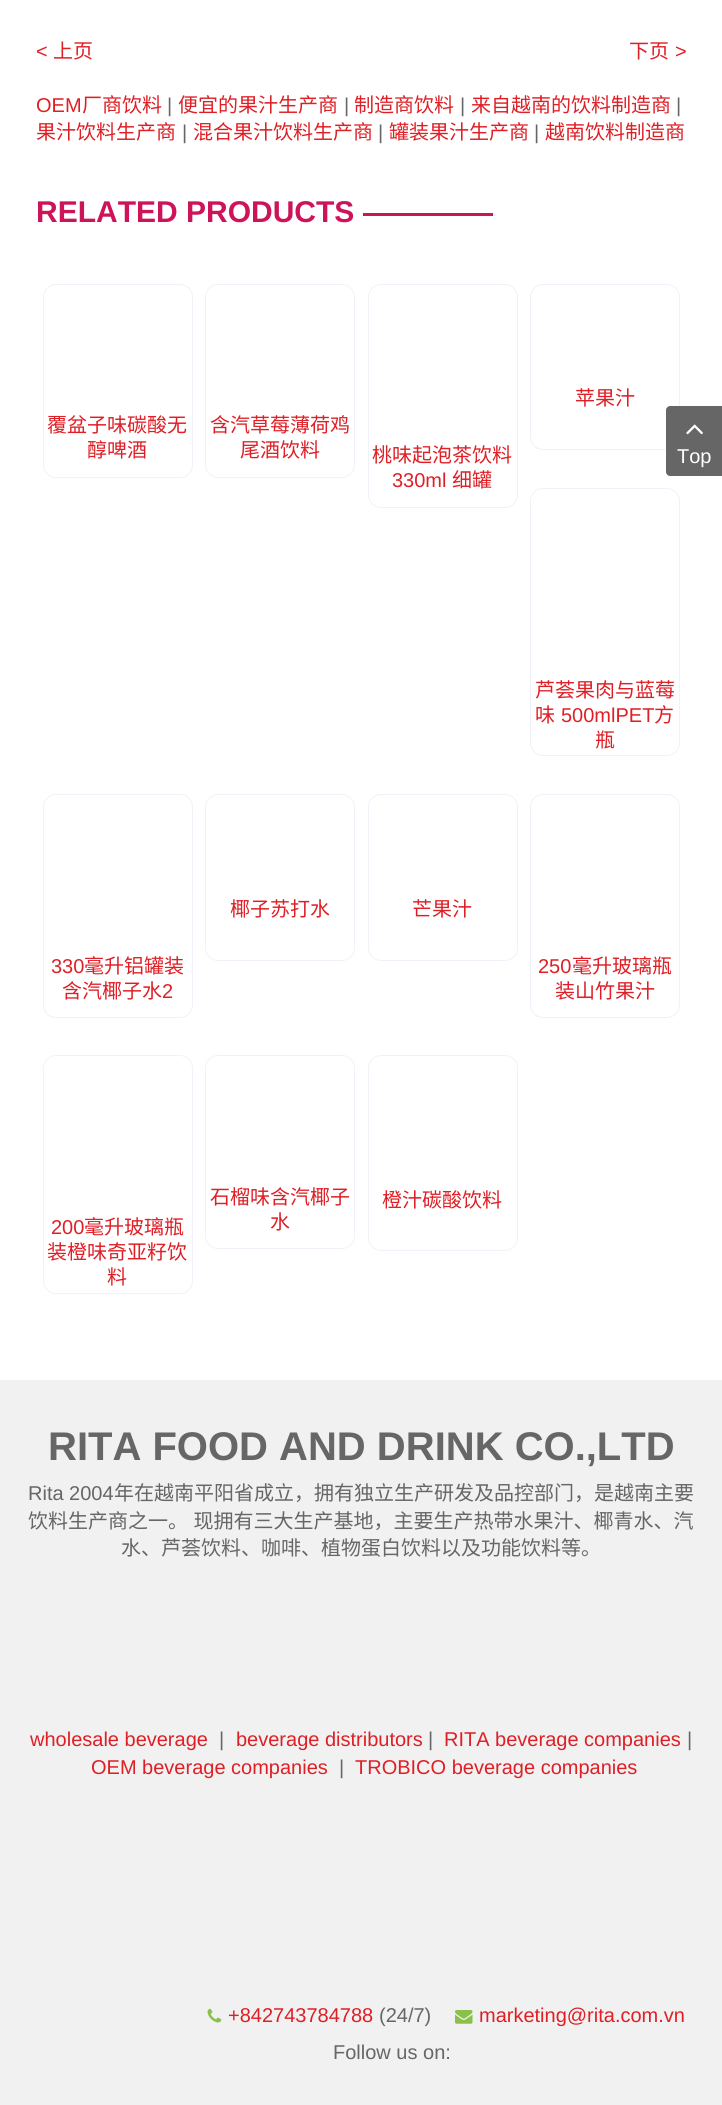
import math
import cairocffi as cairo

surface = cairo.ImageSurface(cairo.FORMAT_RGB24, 722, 2105)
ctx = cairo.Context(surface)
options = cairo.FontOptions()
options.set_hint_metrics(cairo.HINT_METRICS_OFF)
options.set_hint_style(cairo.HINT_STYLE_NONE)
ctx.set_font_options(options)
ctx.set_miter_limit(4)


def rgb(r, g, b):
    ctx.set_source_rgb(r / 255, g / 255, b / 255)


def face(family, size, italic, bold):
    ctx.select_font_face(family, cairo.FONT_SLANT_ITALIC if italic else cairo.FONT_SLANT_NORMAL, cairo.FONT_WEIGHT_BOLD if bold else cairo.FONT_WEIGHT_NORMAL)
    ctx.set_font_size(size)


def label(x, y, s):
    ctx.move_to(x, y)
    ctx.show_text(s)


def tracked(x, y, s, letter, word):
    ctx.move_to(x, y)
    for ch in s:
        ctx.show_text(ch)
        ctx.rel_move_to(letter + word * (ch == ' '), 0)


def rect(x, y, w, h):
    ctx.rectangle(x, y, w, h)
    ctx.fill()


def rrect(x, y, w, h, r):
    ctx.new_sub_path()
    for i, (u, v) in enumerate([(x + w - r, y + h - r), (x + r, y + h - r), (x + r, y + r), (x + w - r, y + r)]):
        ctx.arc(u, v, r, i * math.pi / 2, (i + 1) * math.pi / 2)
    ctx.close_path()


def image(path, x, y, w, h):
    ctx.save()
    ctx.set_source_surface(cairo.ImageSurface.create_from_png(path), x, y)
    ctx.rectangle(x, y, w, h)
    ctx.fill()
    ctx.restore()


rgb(255, 255, 255)
ctx.paint()
face('Liberation Sans', 20, 0, 0)
rgb(223, 31, 38)
label(36, 58, '<')
face('Noto Sans CJK SC', 20, 0, 0)
label(53, 58, '上页')
label(629, 58, '下页')
face('Liberation Sans', 20, 0, 0)
label(675, 58, '>')
label(36, 112, 'OEM')
face('Noto Sans CJK SC', 20, 0, 0)
label(82, 112, '厂商饮料')
face('Liberation Sans', 20, 0, 0)
rgb(102, 102, 102)
label(167, 112, '|')
face('Noto Sans CJK SC', 20, 0, 0)
rgb(223, 31, 38)
label(178, 112, '便宜的果汁生产商')
face('Liberation Sans', 20, 0, 0)
rgb(102, 102, 102)
label(344, 112, '|')
face('Noto Sans CJK SC', 20, 0, 0)
rgb(223, 31, 38)
label(354, 112, '制造商饮料')
face('Liberation Sans', 20, 0, 0)
rgb(102, 102, 102)
label(460, 112, '|')
face('Noto Sans CJK SC', 20, 0, 0)
rgb(223, 31, 38)
label(471, 112, '来自越南的饮料制造商')
face('Liberation Sans', 20, 0, 0)
rgb(102, 102, 102)
label(676, 112, '|')
face('Noto Sans CJK SC', 20, 0, 0)
rgb(223, 31, 38)
label(36, 139, '果汁饮料生产商')
face('Liberation Sans', 20, 0, 0)
rgb(102, 102, 102)
label(182, 139, '|')
face('Noto Sans CJK SC', 20, 0, 0)
rgb(223, 31, 38)
label(193, 139, '混合果汁饮料生产商')
face('Liberation Sans', 20, 0, 0)
rgb(102, 102, 102)
label(378, 139, '|')
face('Noto Sans CJK SC', 20, 0, 0)
rgb(223, 31, 38)
label(389, 139, '罐装果汁生产商')
face('Liberation Sans', 20, 0, 0)
rgb(102, 102, 102)
label(534, 139, '|')
face('Noto Sans CJK SC', 20, 0, 0)
rgb(223, 31, 38)
label(545, 139, '越南饮料制造商')
face('Liberation Sans', 30, 0, 1)
rgb(206, 20, 88)
label(36, 222, 'RELATED PRODUCTS')
rect(363, 213, 130, 3)
rrect(530.5, 284.5, 149, 165, 12.5)
rgb(241, 241, 249)
ctx.set_line_width(1)
ctx.stroke()
face('Noto Sans CJK SC', 20, 0, 0)
rgb(223, 31, 38)
label(575, 405, '苹果汁')
rrect(43.5, 284.5, 149, 193, 12.5)
rgb(241, 241, 249)
ctx.stroke()
rgb(223, 31, 38)
label(47, 432, '覆盆子味碳酸无')
label(87, 457, '醇啤酒')
rrect(205.5, 284.5, 149, 193, 12.5)
rgb(241, 241, 249)
ctx.stroke()
rgb(223, 31, 38)
label(210, 432, '含汽草莓薄荷鸡')
label(240, 457, '尾酒饮料')
rrect(368.5, 284.5, 149, 223, 12.5)
rgb(241, 241, 249)
ctx.stroke()
rgb(223, 31, 38)
label(372, 462, '桃味起泡茶饮料')
face('Liberation Sans', 20, 0, 0)
label(392, 487, '330ml')
face('Noto Sans CJK SC', 20, 0, 0)
label(452, 487, '细罐')
rrect(530.5, 488.5, 149, 267, 12.5)
rgb(241, 241, 249)
ctx.stroke()
rgb(223, 31, 38)
label(535, 697, '芦荟果肉与蓝莓')
label(535, 722, '味')
face('Liberation Sans', 20, 0, 0)
label(561, 722, '500mlPET')
face('Noto Sans CJK SC', 20, 0, 0)
label(654, 722, '方')
label(595, 747, '瓶')
rrect(205.5, 794.5, 149, 166, 12.5)
rgb(241, 241, 249)
ctx.stroke()
rgb(223, 31, 38)
label(230, 916, '椰子苏打水')
rrect(368.5, 794.5, 149, 166, 12.5)
rgb(241, 241, 249)
ctx.stroke()
rgb(223, 31, 38)
label(412, 916, '芒果汁')
rrect(43.5, 794.5, 149, 223, 12.5)
rgb(241, 241, 249)
ctx.stroke()
face('Liberation Sans', 20, 0, 0)
rgb(223, 31, 38)
label(51, 973, '330')
face('Noto Sans CJK SC', 20, 0, 0)
label(84, 973, '毫升铝罐装')
label(62, 998, '含汽椰子水')
face('Liberation Sans', 20, 0, 0)
label(162, 998, '2')
rrect(530.5, 794.5, 149, 223, 12.5)
rgb(241, 241, 249)
ctx.stroke()
rgb(223, 31, 38)
label(538, 973, '250')
face('Noto Sans CJK SC', 20, 0, 0)
label(572, 973, '毫升玻璃瓶')
label(555, 998, '装山竹果汁')
rrect(205.5, 1055.5, 149, 193, 12.5)
rgb(241, 241, 249)
ctx.stroke()
rgb(223, 31, 38)
label(210, 1204, '石榴味含汽椰子')
label(270, 1229, '水')
rrect(368.5, 1055.5, 149, 195, 12.5)
rgb(241, 241, 249)
ctx.stroke()
rgb(223, 31, 38)
label(382, 1207, '橙汁碳酸饮料')
rrect(43.5, 1055.5, 149, 238, 12.5)
rgb(241, 241, 249)
ctx.stroke()
face('Liberation Sans', 20, 0, 0)
rgb(223, 31, 38)
label(51, 1234, '200')
face('Noto Sans CJK SC', 20, 0, 0)
label(84, 1234, '毫升玻璃瓶')
label(47, 1259, '装橙味奇亚籽饮')
label(107, 1284, '料')
rgb(241, 241, 241)
rect(0, 1380, 722, 725)
face('Liberation Sans', 40, 0, 1)
rgb(102, 102, 102)
label(48, 1460, 'RITA FOOD AND DRINK CO.,LTD')
face('Liberation Sans', 20, 0, 0)
label(28, 1500, 'Rita 2004')
face('Noto Sans CJK SC', 20, 0, 0)
label(114, 1500, '年在越南平阳省成立，拥有独立生产研发及品控部门，是越南主要')
tracked(28, 1528, '饮料生产商之一。 现拥有三大生产基地，主要生产热带水果汁、椰青水、汽', 0, 1)
label(121, 1555, '水、芦荟饮料、咖啡、植物蛋白饮料以及功能饮料等。')
face('Liberation Sans', 20, 0, 0)
rgb(223, 31, 38)
label(30, 1746, 'wholesale beverage')
rgb(102, 102, 102)
label(219, 1746, '|')
rgb(223, 31, 38)
label(236, 1746, 'beverage distributors')
rgb(102, 102, 102)
label(428, 1746, '|')
rgb(223, 31, 38)
label(444, 1746, 'RITA beverage companies')
rgb(102, 102, 102)
label(687, 1746, '|')
rgb(223, 31, 38)
label(91, 1774, 'OEM beverage companies')
rgb(102, 102, 102)
label(339, 1774, '|')
rgb(223, 31, 38)
label(355, 1774, 'TROBICO beverage companies')
image('image0.png', 207, 2008, 15, 15)
label(228, 2022, '+842743784788')
rgb(102, 102, 102)
label(379, 2022, '(24/7)')
image('image1.png', 455, 2010, 18, 14)
rgb(223, 31, 38)
label(479, 2022, 'marketing@rita.com.vn')
rgb(102, 102, 102)
label(333, 2059, 'Follow us on:')
ctx.new_path()
ctx.move_to(670, 406)
ctx.line_to(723, 406)
ctx.line_to(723, 476)
ctx.line_to(670, 476)
ctx.curve_to(668, 476, 666, 474, 666, 472)
ctx.line_to(666, 410)
ctx.curve_to(666, 408, 668, 406, 670, 406)
ctx.close_path()
ctx.fill()
image('image2.png', 686, 424, 17, 11)
rgb(255, 255, 255)
label(677, 463, 'Top')
surface.write_to_png('render.png')
